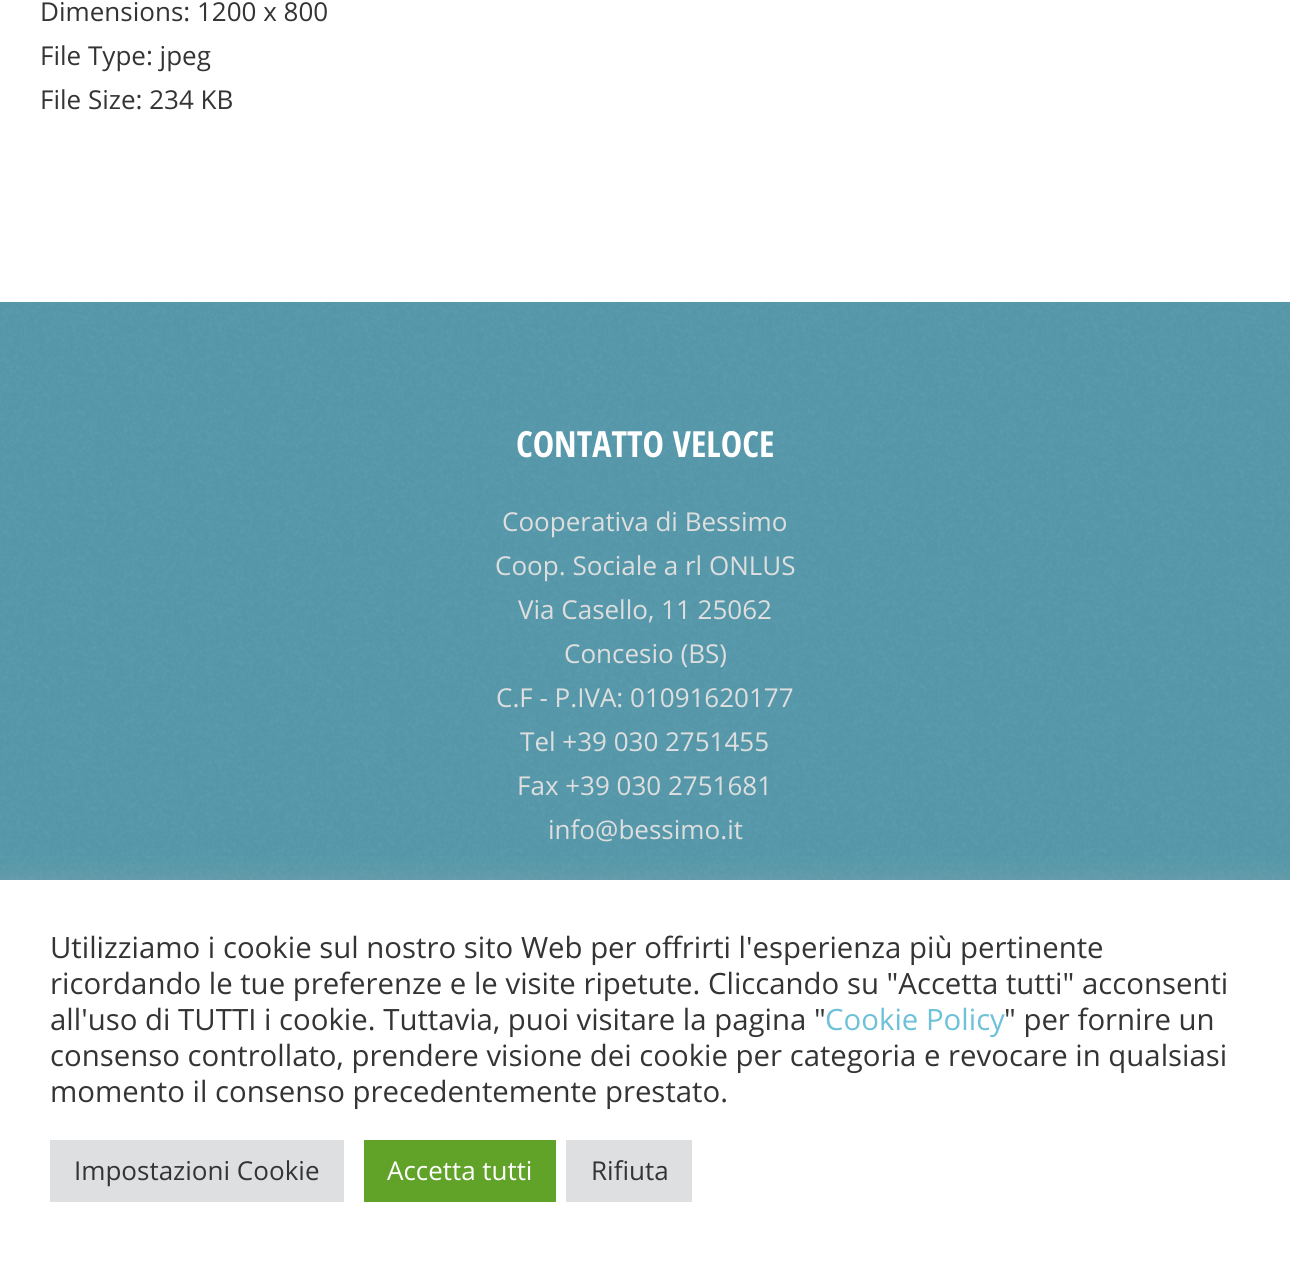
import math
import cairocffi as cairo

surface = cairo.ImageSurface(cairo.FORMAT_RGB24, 1290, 1261)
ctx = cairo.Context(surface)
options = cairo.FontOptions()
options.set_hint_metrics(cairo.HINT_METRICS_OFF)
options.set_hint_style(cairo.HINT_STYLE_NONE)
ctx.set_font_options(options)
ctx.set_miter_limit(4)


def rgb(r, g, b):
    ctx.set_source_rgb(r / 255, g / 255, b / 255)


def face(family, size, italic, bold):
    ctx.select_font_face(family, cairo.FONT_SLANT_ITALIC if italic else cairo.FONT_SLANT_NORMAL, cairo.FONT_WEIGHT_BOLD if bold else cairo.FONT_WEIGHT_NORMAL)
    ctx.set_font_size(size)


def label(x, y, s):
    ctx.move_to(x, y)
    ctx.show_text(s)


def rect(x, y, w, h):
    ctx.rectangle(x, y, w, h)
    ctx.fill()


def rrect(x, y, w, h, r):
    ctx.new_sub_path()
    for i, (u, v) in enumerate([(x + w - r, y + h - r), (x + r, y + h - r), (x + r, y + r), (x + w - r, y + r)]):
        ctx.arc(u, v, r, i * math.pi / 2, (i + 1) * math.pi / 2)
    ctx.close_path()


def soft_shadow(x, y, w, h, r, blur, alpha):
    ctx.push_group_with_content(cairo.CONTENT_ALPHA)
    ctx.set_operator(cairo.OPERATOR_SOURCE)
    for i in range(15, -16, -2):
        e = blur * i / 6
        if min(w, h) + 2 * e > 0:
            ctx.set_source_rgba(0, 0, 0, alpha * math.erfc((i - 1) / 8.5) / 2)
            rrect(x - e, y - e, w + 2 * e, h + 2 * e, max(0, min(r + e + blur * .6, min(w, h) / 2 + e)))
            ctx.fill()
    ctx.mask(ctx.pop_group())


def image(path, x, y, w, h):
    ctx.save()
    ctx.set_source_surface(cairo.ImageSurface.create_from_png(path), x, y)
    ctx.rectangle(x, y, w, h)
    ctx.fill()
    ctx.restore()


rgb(255, 255, 255)
ctx.paint()
face('Open Sans', 26, 0, 0)
rgb(52, 52, 52)
label(40, 21, 'Dimensions: 1200 x 800')
label(40, 65, 'File Type: jpeg')
label(40, 109, 'File Size: 234 KB')
rgb(87, 155, 173)
rect(0, 302, 1290, 578)
image('image0.png', 0, 302, 1290, 578)
face('Open Sans Condensed', 36, 0, 1)
rgb(255, 255, 255)
label(516, 457, 'CONTATTO VELOCE')
face('Open Sans', 26, 0, 0)
rgb(222, 222, 222)
label(502, 531, 'Cooperativa di Bessimo')
label(495, 575, 'Coop. Sociale a rl ONLUS')
label(518, 619, 'Via Casello, 11 25062')
label(564, 663, 'Concesio (BS)')
label(496, 707, 'C.F - P.IVA: 01091620177')
label(520, 751, 'Tel +39 030 2751455')
label(517, 795, 'Fax +39 030 2751681')
label(548, 839, 'info@bessimo.it')
rgb(172, 171, 171)
soft_shadow(0, 878, 1290, 382, 0, 10, 0.3)
rgb(255, 255, 255)
rect(0, 880, 1290, 381)
face('Open Sans', 29.35, 0, 0)
rgb(52, 52, 52)
label(50, 958, 'Utilizziamo i cookie sul nostro sito Web per offrirti l\'esperienza più pertinente')
label(50, 994, 'ricordando le tue preferenze e le visite ripetute. Cliccando su "Accetta tutti" acconsenti')
label(50, 1030, 'all\'uso di TUTTI i cookie. Tuttavia, puoi visitare la pagina "')
rgb(109, 193, 216)
label(825, 1030, 'Cookie Policy')
rgb(52, 52, 52)
label(1004, 1030, '" per fornire un')
label(50, 1066, 'consenso controllato, prendere visione dei cookie per categoria e revocare in qualsiasi')
label(50, 1102, 'momento il consenso precedentemente prestato.')
rgb(222, 223, 224)
rect(50, 1140, 294, 62)
face('Open Sans', 26, 0, 0)
rgb(52, 52, 52)
label(74, 1180, 'Impostazioni Cookie')
rgb(97, 162, 41)
rect(364, 1140, 192, 62)
rgb(255, 255, 255)
label(387, 1180, 'Accetta tutti')
rgb(222, 223, 224)
rect(566, 1140, 126, 62)
rgb(52, 52, 52)
label(591, 1180, 'Rifiuta')
surface.write_to_png('render.png')
